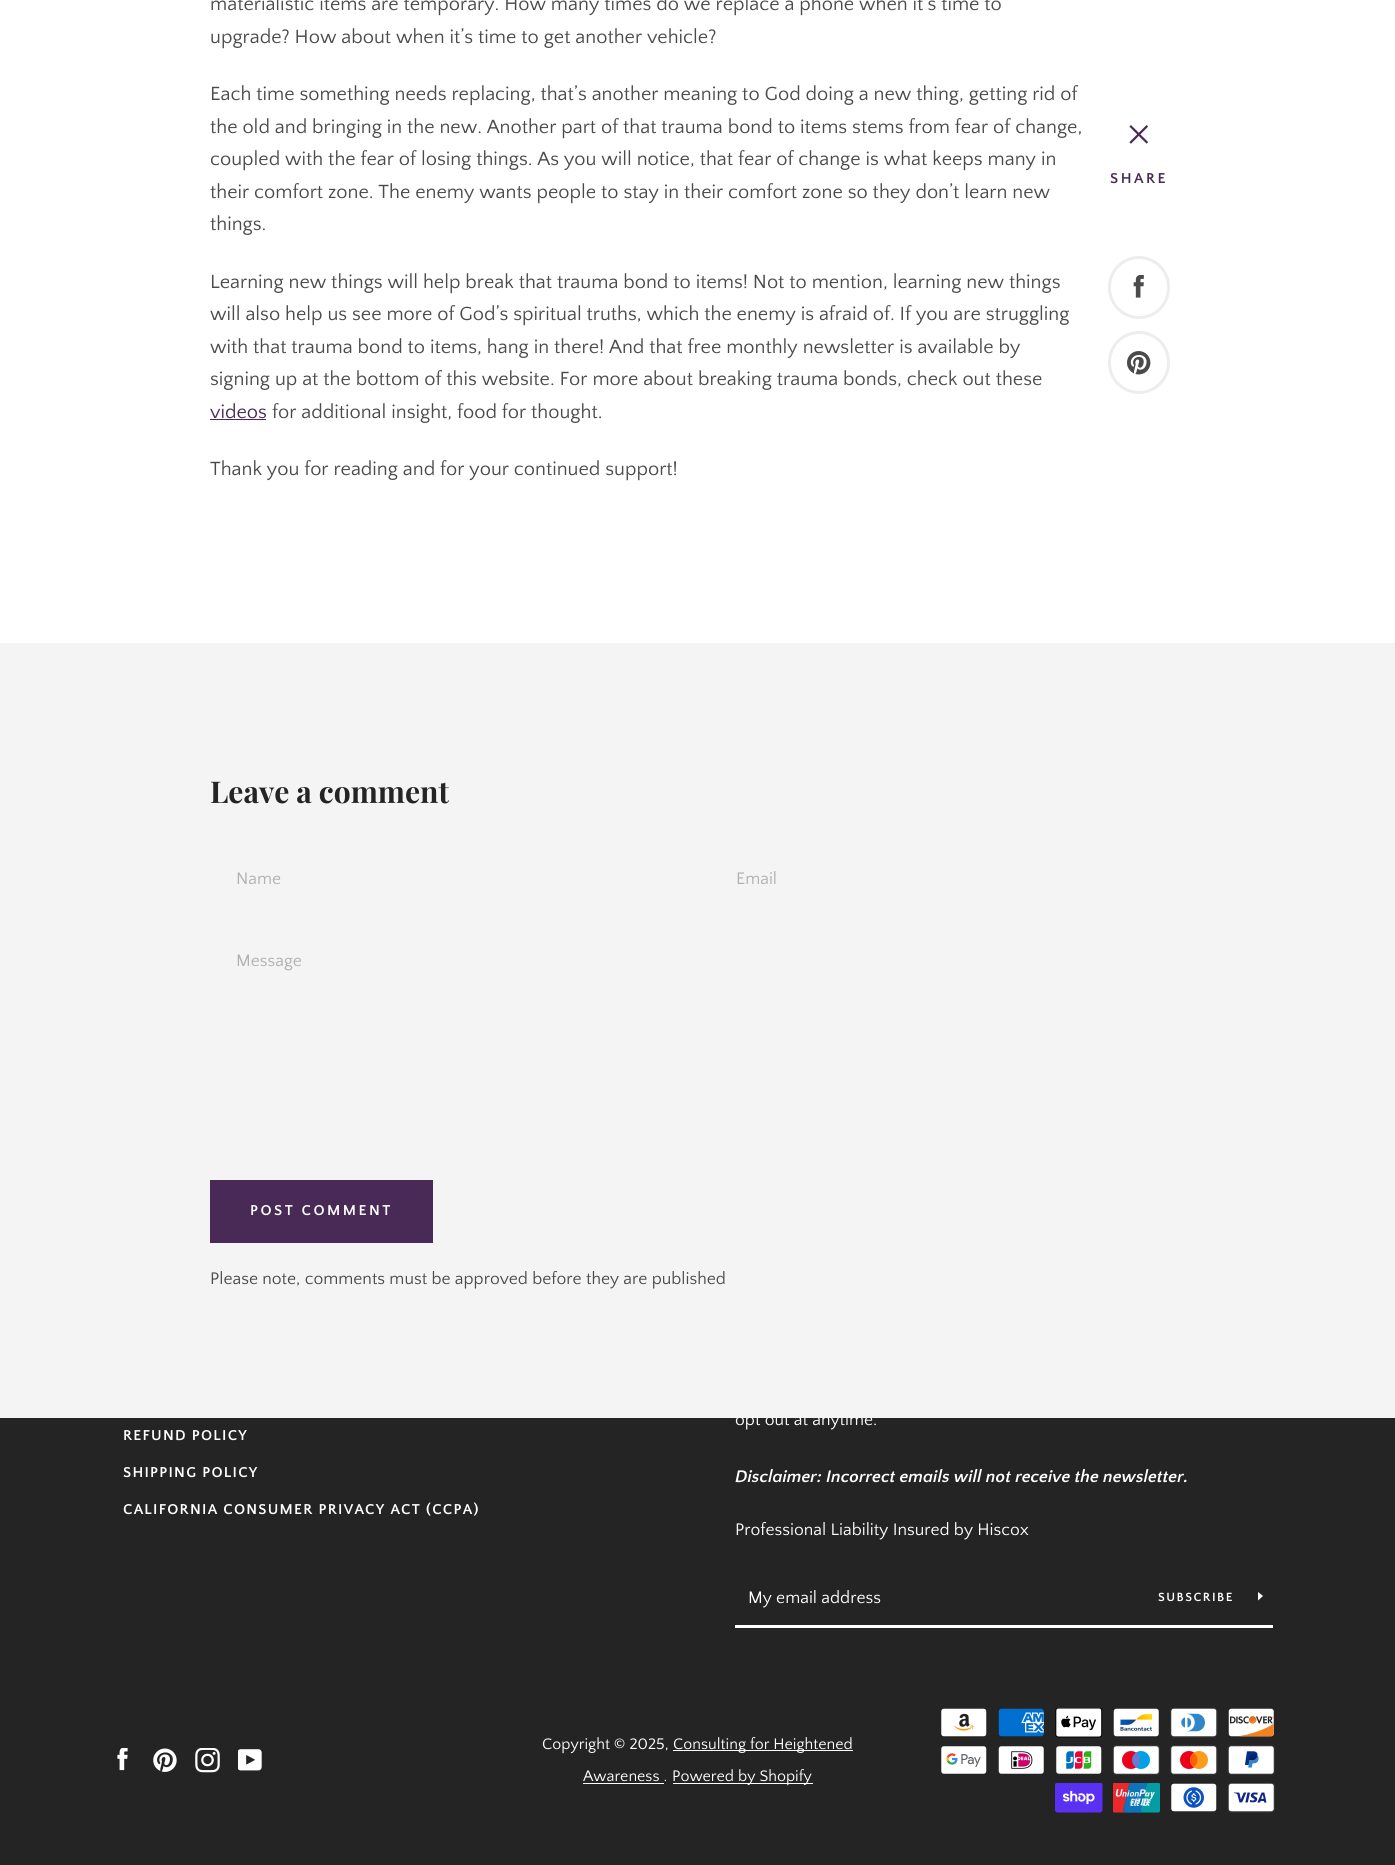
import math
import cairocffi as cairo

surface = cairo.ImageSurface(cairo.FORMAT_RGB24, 1395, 1865)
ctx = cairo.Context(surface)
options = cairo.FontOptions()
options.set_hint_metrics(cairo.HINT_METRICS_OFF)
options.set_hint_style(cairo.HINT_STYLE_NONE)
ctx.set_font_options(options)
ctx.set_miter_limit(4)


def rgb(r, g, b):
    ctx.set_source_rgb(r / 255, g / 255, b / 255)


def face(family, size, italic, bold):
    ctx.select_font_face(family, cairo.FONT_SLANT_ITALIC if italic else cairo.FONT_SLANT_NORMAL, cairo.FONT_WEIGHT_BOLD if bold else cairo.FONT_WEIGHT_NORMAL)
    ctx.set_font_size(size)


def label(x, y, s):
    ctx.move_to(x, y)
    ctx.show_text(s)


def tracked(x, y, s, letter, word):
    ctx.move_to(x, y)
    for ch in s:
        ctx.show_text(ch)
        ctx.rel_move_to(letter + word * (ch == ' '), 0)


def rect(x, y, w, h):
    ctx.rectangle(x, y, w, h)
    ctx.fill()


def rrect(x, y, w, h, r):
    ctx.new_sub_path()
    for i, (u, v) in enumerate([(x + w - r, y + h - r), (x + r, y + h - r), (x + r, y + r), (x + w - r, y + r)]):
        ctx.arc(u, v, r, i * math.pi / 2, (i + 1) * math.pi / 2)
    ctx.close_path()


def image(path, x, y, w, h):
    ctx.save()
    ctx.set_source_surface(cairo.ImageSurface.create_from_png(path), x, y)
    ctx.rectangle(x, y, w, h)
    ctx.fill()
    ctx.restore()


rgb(36, 36, 36)
ctx.paint()
rgb(255, 255, 255)
rect(0, 0, 1395, 643)
face('Quattrocento Sans', 20, 0, 0)
rgb(74, 74, 74)
label(210, 10, 'materialistic items are temporary. How many times do we replace a phone when it’s time to')
label(210, 43, 'upgrade? How about when it’s time to get another vehicle?')
label(210, 100, 'Each time something needs replacing, that’s another meaning to God doing a new thing, getting rid of')
label(210, 133, 'the old and bringing in the new. Another part of that trauma bond to items stems from fear of change,')
label(210, 165, 'coupled with the fear of losing things. As you will notice, that fear of change is what keeps many in')
label(210, 198, 'their comfort zone. The enemy wants people to stay in their comfort zone so they don’t learn new')
label(210, 230, 'things.')
label(210, 288, 'Learning new things will help break that trauma bond to items! Not to mention, learning new things')
label(210, 320, 'will also help us see more of God’s spiritual truths, which the enemy is afraid of. If you are struggling')
label(210, 353, 'with that trauma bond to items, hang in there! And that free monthly newsletter is available by')
label(210, 385, 'signing up at the bottom of this website. For more about breaking trauma bonds, check out these')
rgb(73, 41, 86)
label(210, 418, 'videos')
rect(210, 419, 56, 1)
rgb(74, 74, 74)
label(272, 418, 'for additional insight, food for thought.')
label(210, 475, 'Thank you for reading and for your continued support!')
image('image0.png', 1129, 125, 19, 19)
face('Quattrocento Sans', 15, 0, 1)
rgb(73, 41, 86)
tracked(1110, 183, 'SHARE', 2.5, 0)
rrect(1109.5, 257.5, 59, 60, 29.5)
rgb(237, 237, 237)
ctx.set_line_width(3)
ctx.stroke()
image('image1.png', 1133, 275, 11, 23)
rrect(1109.5, 332.5, 59, 60, 29.5)
ctx.stroke()
image('image2.png', 1127, 351, 24, 24)
face('Quattrocento Sans', 17.5, 0, 0)
rgb(255, 255, 255)
label(735, 1425, 'opt out at anytime.')
rgb(243, 244, 243)
rect(0, 643, 1395, 775)
face('Playfair Display', 30, 0, 1)
rgb(36, 36, 36)
label(210, 803, 'Leave a comment')
face('Quattrocento Sans', 17.5, 0, 0)
rgb(175, 176, 175)
label(236, 884, 'Name')
label(736, 884, 'Email')
label(236, 966, 'Message')
rgb(73, 41, 86)
rect(210, 1180, 223, 63)
face('Quattrocento Sans', 15, 0, 1)
rgb(255, 255, 255)
tracked(250, 1215, 'POST COMMENT', 2.5, 0)
face('Quattrocento Sans', 17.5, 0, 0)
rgb(74, 74, 74)
label(210, 1284, 'Please note, comments must be approved before they are published')
face('Quattrocento Sans', 15, 0, 1)
rgb(255, 255, 255)
tracked(123, 1440, 'REFUND POLICY', 1.25, 0)
tracked(123, 1477, 'SHIPPING POLICY', 1.25, 0)
tracked(123, 1514, 'CALIFORNIA CONSUMER PRIVACY ACT (CCPA)', 1.25, 0)
face('Quattrocento Sans', 17.5, 1, 1)
label(735, 1482, 'Disclaimer: Incorrect emails will not receive the newsletter.')
face('Quattrocento Sans', 17.5, 0, 0)
label(735, 1535, 'Professional Liability Insured by Hiscox')
rect(735, 1625, 538, 3)
label(748, 1603, 'My email address')
face('Quattrocento Sans', 12.5, 0, 1)
tracked(1158, 1601, 'SUBSCRIBE', 1.5, 0)
ctx.new_path()
ctx.move_to(1263, 1596)
ctx.line_to(1258, 1600.5)
ctx.line_to(1258, 1592)
ctx.close_path()
ctx.fill()
image('image3.png', 117, 1748, 11, 23)
image('image4.png', 153, 1748, 24, 24)
image('image5.png', 195, 1748, 25, 25)
image('image6.png', 238, 1749, 24, 22)
face('Quattrocento Sans', 16, 0, 0)
label(542, 1749, 'Copyright © 2025,')
rect(673, 1750, 180, 1)
label(673, 1749, 'Consulting for Heightened')
label(583, 1781, 'Awareness .')
rect(583, 1783, 81, 1)
rect(673, 1783, 140, 1)
label(672, 1781, 'Powered by Shopify')
image('image7.png', 941, 1708, 46, 29)
image('image8.png', 998, 1708, 46, 29)
image('image9.png', 1055, 1708, 48, 30)
image('image10.png', 1113, 1708, 46, 29)
image('image11.png', 1170, 1708, 48, 30)
image('image12.png', 1228, 1708, 46, 29)
image('image13.png', 941, 1746, 46, 28)
image('image14.png', 998, 1746, 46, 28)
image('image15.png', 1056, 1746, 46, 28)
image('image16.png', 1113, 1745, 47, 30)
image('image17.png', 1170, 1745, 48, 30)
image('image18.png', 1228, 1745, 47, 30)
image('image19.png', 1055, 1783, 48, 30)
image('image20.png', 1113, 1783, 47, 30)
image('image21.png', 1171, 1783, 46, 29)
image('image22.png', 1228, 1783, 47, 30)
surface.write_to_png('render.png')
